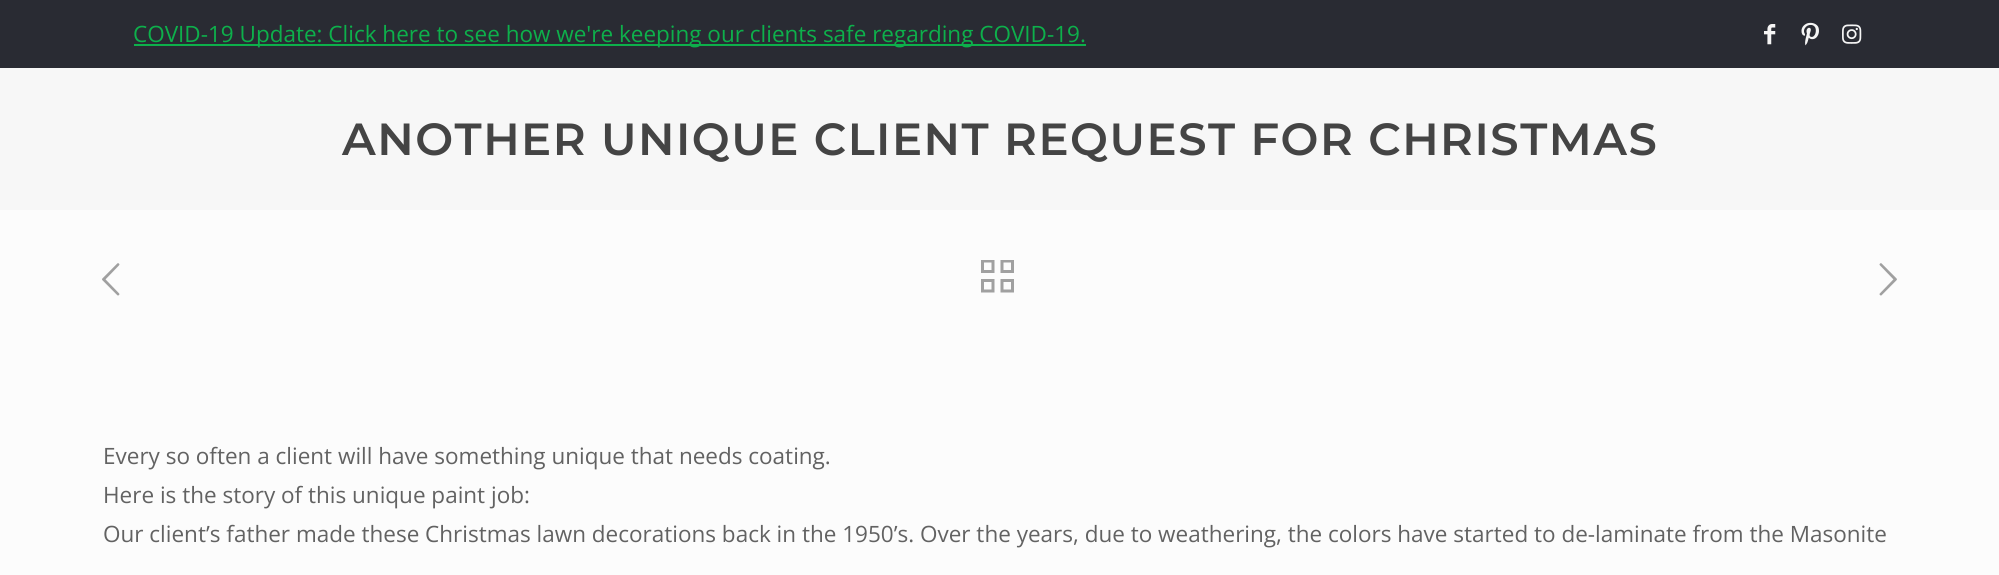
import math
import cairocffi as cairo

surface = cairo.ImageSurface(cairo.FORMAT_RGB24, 1999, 575)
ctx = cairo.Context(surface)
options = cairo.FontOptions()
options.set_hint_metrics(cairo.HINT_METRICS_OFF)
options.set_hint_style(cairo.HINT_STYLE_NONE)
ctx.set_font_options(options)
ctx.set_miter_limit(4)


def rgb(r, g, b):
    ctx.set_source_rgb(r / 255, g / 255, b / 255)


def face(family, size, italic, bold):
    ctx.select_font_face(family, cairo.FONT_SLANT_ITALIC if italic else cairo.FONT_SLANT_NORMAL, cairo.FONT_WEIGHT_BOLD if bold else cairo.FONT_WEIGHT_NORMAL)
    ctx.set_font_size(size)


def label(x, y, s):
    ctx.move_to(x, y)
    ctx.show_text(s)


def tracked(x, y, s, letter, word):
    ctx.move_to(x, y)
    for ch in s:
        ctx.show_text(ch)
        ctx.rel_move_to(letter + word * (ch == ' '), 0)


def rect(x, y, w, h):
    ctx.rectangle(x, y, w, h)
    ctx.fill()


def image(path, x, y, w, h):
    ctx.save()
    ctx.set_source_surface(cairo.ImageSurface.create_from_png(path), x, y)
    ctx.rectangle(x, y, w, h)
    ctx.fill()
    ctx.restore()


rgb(252, 252, 252)
ctx.paint()
rgb(41, 43, 51)
rect(0, 0, 1999, 68)
rgb(13, 176, 75)
rect(134, 44, 952, 2)
face('Open Sans', 22.5, 0, 0)
label(133, 42, 'COVID-19 Update: Click here to see how we\'re keeping our clients safe regarding COVID-19.')
image('image0.png', 1764, 24, 12, 21)
image('image1.png', 1801, 22, 18, 24)
image('image2.png', 1842, 24, 20, 20)
rgb(247, 247, 247)
rect(0, 68, 1999, 142)
face('Montserrat SemiBold', 45, 0, 0)
rgb(68, 68, 68)
tracked(342, 155, 'ANOTHER UNIQUE CLIENT REQUEST FOR CHRISTMAS', 1.5, 0)
image('image3.png', 102, 263, 18, 33)
image('image4.png', 981, 260, 33, 33)
image('image5.png', 1879, 263, 18, 33)
face('Open Sans', 22.5, 0, 0)
rgb(98, 98, 98)
label(103, 464, 'Every so often a client will have something unique that needs coating.')
label(103, 503, 'Here is the story of this unique paint job:')
label(103, 542, 'Our client’s father made these Christmas lawn decorations back in the 1950’s. Over the years, due to weathering, the colors have started to de-laminate from the Masonite')
surface.write_to_png('render.png')
